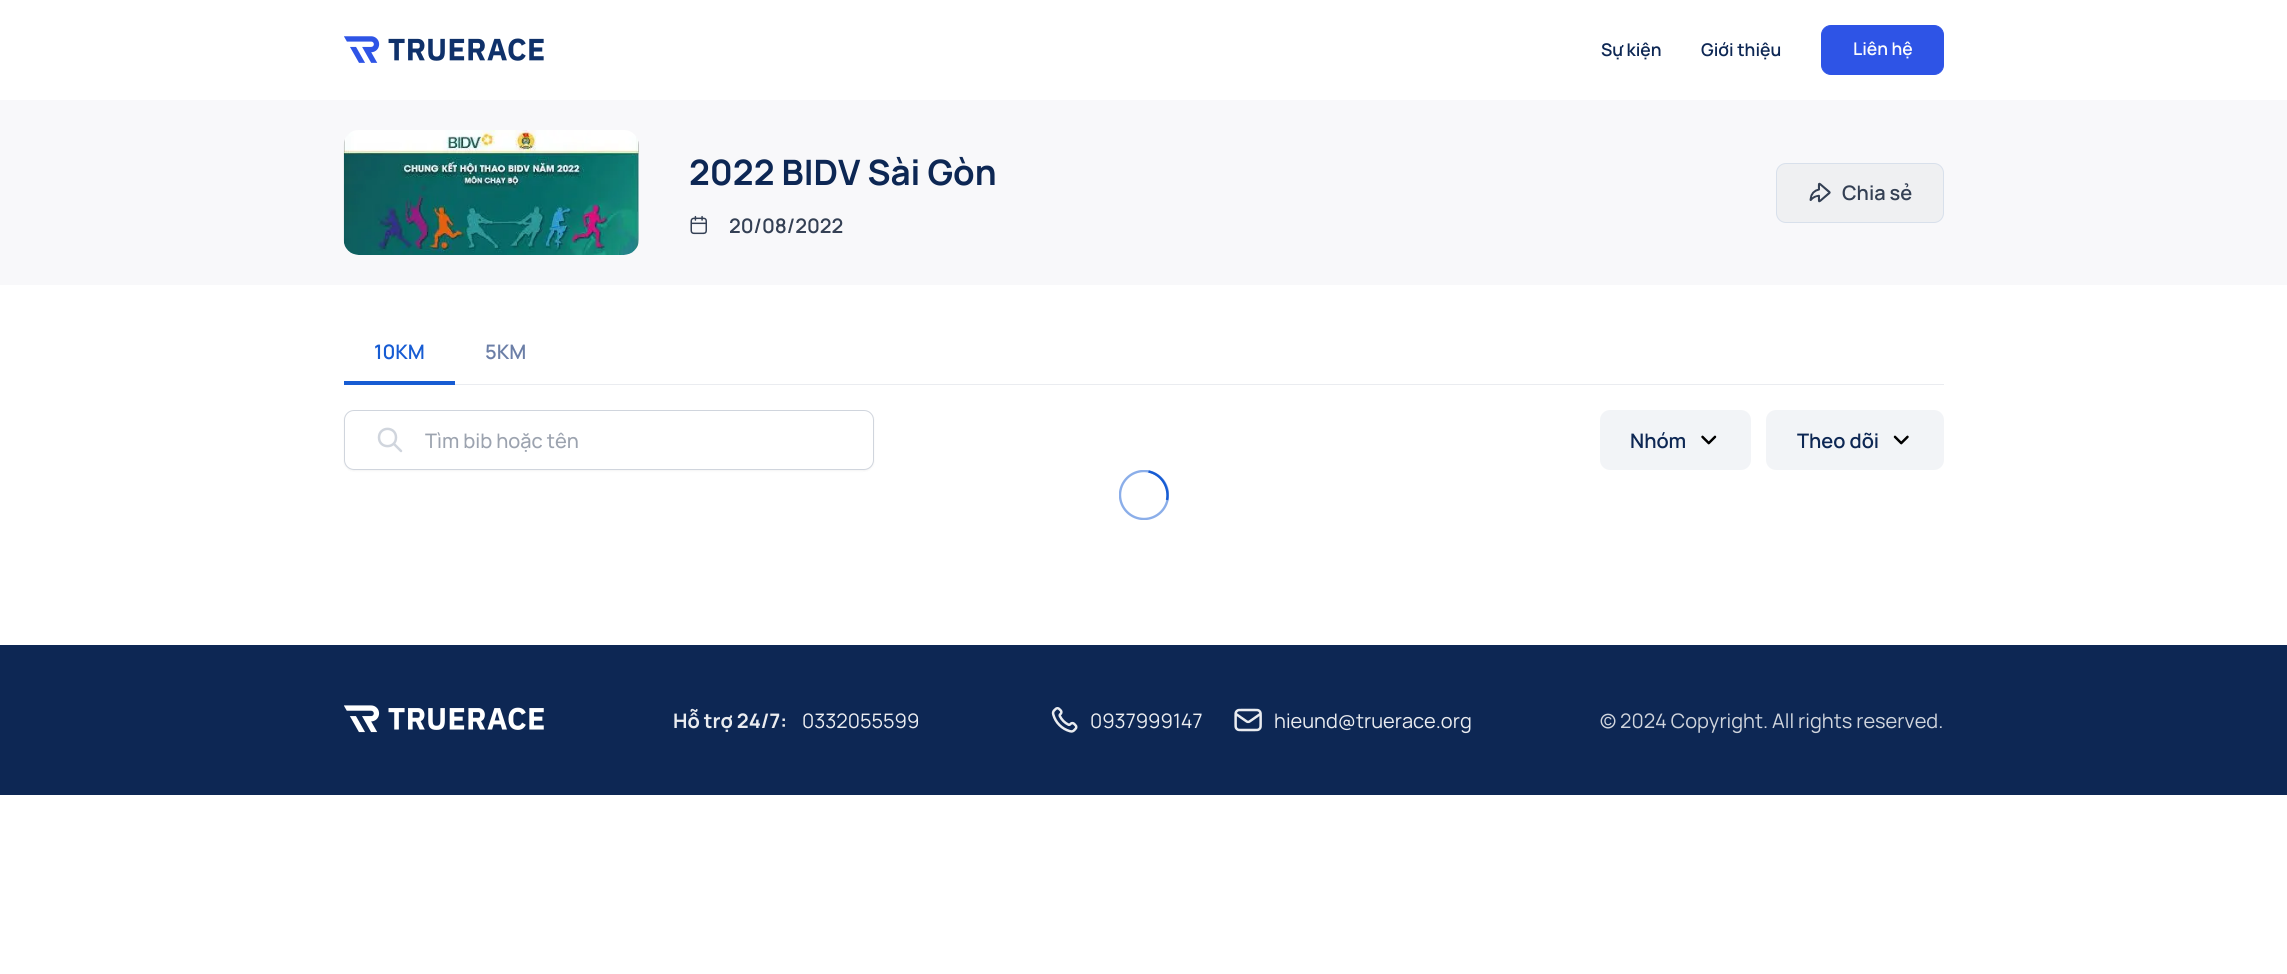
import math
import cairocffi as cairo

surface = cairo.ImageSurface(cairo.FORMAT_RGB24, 2287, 974)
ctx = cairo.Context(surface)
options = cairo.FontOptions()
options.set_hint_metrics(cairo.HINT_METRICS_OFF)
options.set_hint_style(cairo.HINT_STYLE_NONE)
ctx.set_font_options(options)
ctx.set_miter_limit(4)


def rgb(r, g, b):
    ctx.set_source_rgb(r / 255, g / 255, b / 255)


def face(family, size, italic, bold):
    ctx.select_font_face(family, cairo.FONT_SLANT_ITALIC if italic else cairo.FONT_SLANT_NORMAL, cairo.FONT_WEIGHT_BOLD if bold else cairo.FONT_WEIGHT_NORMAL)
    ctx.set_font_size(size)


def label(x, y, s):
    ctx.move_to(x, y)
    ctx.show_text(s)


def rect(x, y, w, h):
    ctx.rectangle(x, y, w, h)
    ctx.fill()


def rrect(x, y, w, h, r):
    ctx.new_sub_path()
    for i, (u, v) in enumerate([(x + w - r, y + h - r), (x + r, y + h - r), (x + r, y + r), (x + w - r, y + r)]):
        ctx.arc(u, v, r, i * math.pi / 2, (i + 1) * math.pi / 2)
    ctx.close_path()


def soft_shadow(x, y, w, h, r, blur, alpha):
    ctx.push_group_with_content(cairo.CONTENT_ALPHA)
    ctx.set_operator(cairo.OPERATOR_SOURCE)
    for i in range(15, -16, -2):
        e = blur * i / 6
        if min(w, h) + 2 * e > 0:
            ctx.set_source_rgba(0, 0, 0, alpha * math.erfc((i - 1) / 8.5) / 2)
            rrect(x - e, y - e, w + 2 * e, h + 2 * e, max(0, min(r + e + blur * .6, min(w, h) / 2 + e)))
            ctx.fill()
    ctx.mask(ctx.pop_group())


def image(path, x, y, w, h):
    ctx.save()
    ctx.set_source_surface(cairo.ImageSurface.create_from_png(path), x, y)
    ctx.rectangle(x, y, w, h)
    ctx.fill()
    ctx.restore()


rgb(255, 255, 255)
ctx.paint()
image('image0.png', 344, 36, 200, 27)
face('Manrope SemiBold', 17.5, 0, 0)
rgb(13, 39, 84)
label(1601, 56, 'Sự kiện')
label(1701, 56, 'Giới thiệu')
rgb(46, 84, 230)
rrect(1821.5, 25.5, 122, 49, 9.5)
ctx.fill_preserve()
ctx.set_line_width(1)
ctx.stroke()
rgb(252, 252, 253)
label(1853, 55, 'Liên hệ')
rgb(248, 248, 250)
rect(0, 100, 2287, 185)
image('image1.png', 343, 130, 296, 125)
face('Manrope', 35, 0, 1)
rgb(13, 39, 84)
label(689, 185, '2022 BIDV Sài Gòn')
image('image2.png', 690, 215, 17, 20)
face('Manrope SemiBold', 20, 0, 0)
rgb(52, 64, 84)
label(729, 233, '20/08/2022')
rgb(239, 240, 242)
rrect(1776.5, 163.5, 167, 59, 9.5)
ctx.fill_preserve()
rgb(216, 224, 235)
ctx.stroke()
image('image3.png', 1809, 182, 22, 21)
rgb(52, 64, 84)
label(1842, 200, 'Chia sẻ')
rgb(234, 236, 240)
rect(455, 384, 1489, 1)
rgb(23, 92, 211)
rect(344, 381, 111, 4)
label(374, 359, '10KM')
rgb(108, 127, 167)
label(485, 359, '5KM')
rgb(0, 0, 0)
soft_shadow(344, 411, 530, 60, 10, 1, 0.05)
rgb(255, 255, 255)
rrect(344.5, 410.5, 529, 59, 9.5)
ctx.fill_preserve()
rgb(208, 213, 221)
ctx.stroke()
ctx.new_path()
ctx.move_to(401, 451)
ctx.line_to(394, 444)
ctx.move_to(396, 437.5)
ctx.curve_to(396, 449, 379, 449, 379, 437.5)
ctx.curve_to(379, 426, 396, 426, 396, 437.5)
ctx.close_path()
ctx.set_line_width(2.5)
ctx.set_line_cap(cairo.LINE_CAP_ROUND)
ctx.set_line_join(cairo.LINE_JOIN_ROUND)
ctx.stroke()
face('Manrope Medium', 20, 0, 0)
rgb(156, 163, 175)
label(425, 448, 'Tìm bib hoặc tên')
rgb(242, 244, 247)
rrect(1600, 410, 151, 60, 10)
ctx.fill()
face('Manrope SemiBold', 20, 0, 0)
rgb(13, 39, 84)
label(1630, 448, 'Nhóm')
image('image4.png', 1701, 435, 16, 10)
rgb(242, 244, 247)
rrect(1766, 410, 178, 60, 10)
ctx.fill()
rgb(13, 39, 84)
label(1797, 448, 'Theo dõi')
image('image5.png', 1893, 435, 16, 10)
ctx.save()
ctx.rectangle(1119, 470, 50, 50)
ctx.clip()
ctx.arc(1144, 495, 24, 0, 2 * math.pi)
rgb(139, 174, 233)
ctx.set_line_width(2.4)
ctx.set_line_cap(cairo.LINE_CAP_BUTT)
ctx.set_line_join(cairo.LINE_JOIN_MITER)
ctx.stroke()
ctx.restore()
ctx.new_path()
ctx.move_to(1167, 500)
ctx.curve_to(1169.5, 488.5, 1162.5, 474.5, 1148.5, 471.5)
rgb(23, 92, 211)
ctx.set_line_width(2.4)
ctx.set_line_cap(cairo.LINE_CAP_BUTT)
ctx.set_line_join(cairo.LINE_JOIN_MITER)
ctx.stroke()
rgb(13, 39, 84)
rect(0, 645, 2287, 150)
image('image6.png', 344, 705, 200, 28)
face('Manrope', 20, 0, 1)
rgb(234, 236, 240)
label(673, 728, 'Hỗ trợ 24/7:')
face('Manrope', 20, 0, 0)
label(802, 728, '0332055599')
image('image7.png', 1051, 707, 27, 26)
label(1090, 728, '0937999147')
image('image8.png', 1234, 708, 28, 24)
label(1274, 728, 'hieund@truerace.org')
rgb(208, 213, 221)
label(1600, 728, '© 2024 Copyright. All rights reserved.')
surface.write_to_png('render.png')
